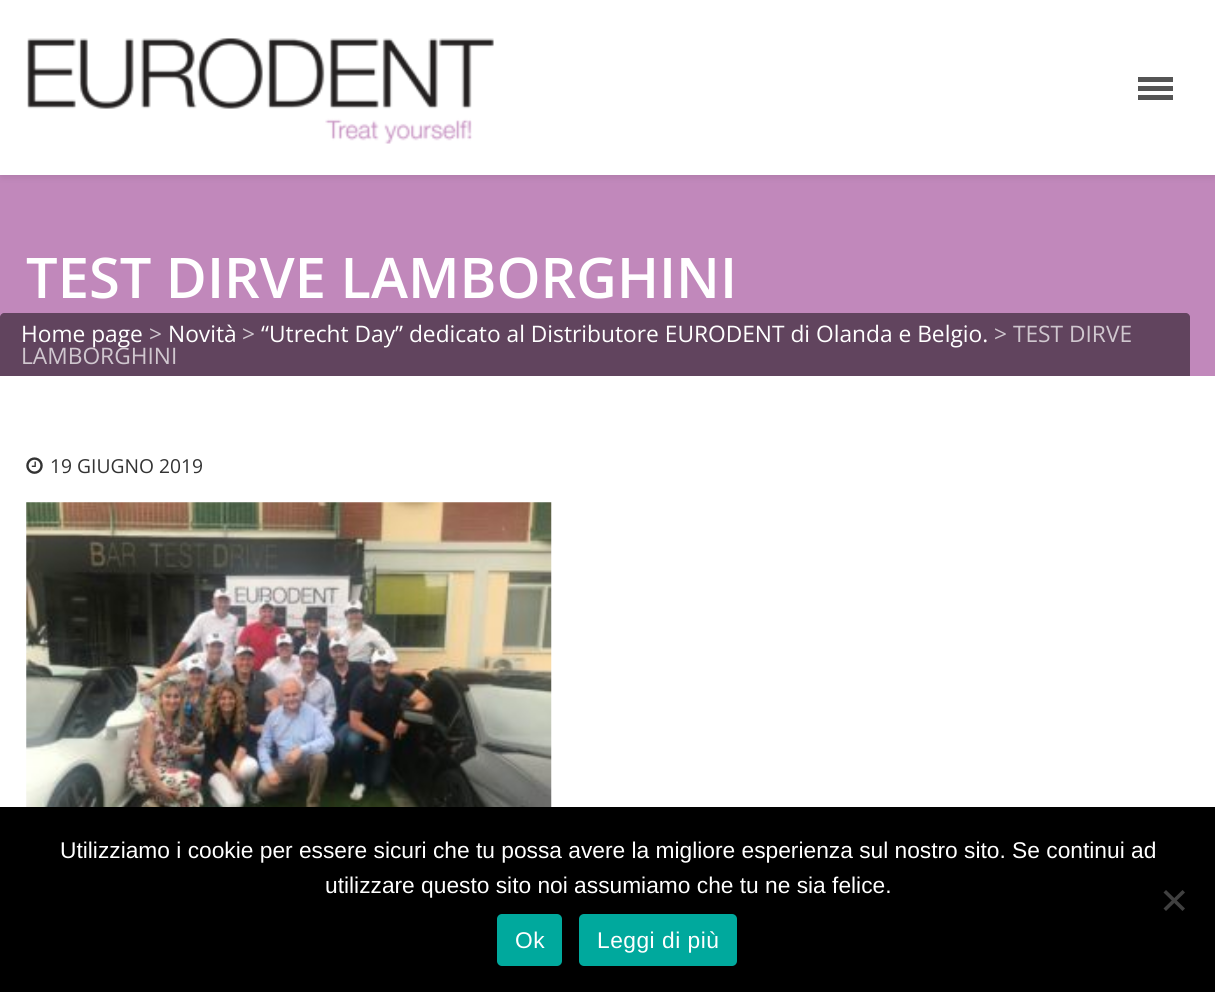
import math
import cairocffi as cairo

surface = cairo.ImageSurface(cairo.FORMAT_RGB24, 1215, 992)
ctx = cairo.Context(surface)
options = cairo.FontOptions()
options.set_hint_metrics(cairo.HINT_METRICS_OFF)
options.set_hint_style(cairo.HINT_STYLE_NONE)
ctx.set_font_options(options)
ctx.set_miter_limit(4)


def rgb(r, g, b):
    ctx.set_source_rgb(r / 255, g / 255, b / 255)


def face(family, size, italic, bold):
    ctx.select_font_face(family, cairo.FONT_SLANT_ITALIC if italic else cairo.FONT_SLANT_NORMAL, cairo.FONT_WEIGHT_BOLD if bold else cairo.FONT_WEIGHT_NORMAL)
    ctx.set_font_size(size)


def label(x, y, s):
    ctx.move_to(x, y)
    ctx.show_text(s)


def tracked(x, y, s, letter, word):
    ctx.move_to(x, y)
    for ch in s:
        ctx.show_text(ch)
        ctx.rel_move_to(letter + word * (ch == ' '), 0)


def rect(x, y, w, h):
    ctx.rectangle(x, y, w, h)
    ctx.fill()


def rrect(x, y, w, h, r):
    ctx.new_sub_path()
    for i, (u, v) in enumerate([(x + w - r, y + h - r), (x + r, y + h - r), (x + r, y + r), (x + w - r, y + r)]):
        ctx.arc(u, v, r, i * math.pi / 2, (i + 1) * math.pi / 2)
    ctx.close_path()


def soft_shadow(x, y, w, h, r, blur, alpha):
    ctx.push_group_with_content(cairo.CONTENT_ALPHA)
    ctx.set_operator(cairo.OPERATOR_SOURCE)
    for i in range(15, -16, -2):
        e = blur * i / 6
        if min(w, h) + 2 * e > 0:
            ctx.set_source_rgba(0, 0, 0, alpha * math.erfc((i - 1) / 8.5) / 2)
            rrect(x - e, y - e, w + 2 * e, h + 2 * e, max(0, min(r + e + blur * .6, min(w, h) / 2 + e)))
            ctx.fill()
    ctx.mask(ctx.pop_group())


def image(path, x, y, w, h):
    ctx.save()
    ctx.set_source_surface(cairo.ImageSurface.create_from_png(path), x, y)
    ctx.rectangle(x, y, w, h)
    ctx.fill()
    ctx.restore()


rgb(255, 255, 255)
ctx.paint()
image('image0.png', 27, 38, 467, 106)
rgb(85, 85, 85)
rect(1138, 77, 35, 5)
rect(1138, 86, 35, 5)
rect(1138, 95, 35, 5)
rgb(193, 136, 187)
rect(0, 175, 1215, 201)
ctx.save()
ctx.rectangle(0, 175, 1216, 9)
ctx.clip()
rgb(0, 0, 0)
soft_shadow(0, 168, 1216, 9, 4.5, 3.5, 0.1)
ctx.restore()
face('Open Sans SemiBold', 56, 0, 0)
rgb(255, 255, 255)
label(26, 298, 'TEST DIRVE LAMBORGHINI')
rgb(97, 68, 94)
ctx.new_path()
ctx.move_to(4, 313)
ctx.line_to(1186, 313)
ctx.curve_to(1188, 313, 1190, 315, 1190, 317)
ctx.line_to(1190, 376)
ctx.line_to(0, 376)
ctx.line_to(0, 317)
ctx.curve_to(0, 315, 2, 313, 4, 313)
ctx.close_path()
ctx.fill()
face('Open Sans', 22.75, 0, 0)
rgb(255, 255, 255)
label(21, 342, 'Home page')
rgb(208, 199, 207)
label(149, 342, '>')
rgb(255, 255, 255)
label(168, 342, 'Novità')
rgb(208, 199, 207)
label(242, 342, '>')
rgb(255, 255, 255)
label(261, 342, '“Utrecht Day” dedicato al Distributore EURODENT di Olanda e Belgio.')
rgb(208, 199, 207)
label(994, 342, '> TEST DIRVE')
label(21, 364, 'LAMBORGHINI')
image('image1.png', 26, 457, 17, 17)
face('Open Sans', 19.25, 0, 0)
rgb(51, 51, 51)
label(50, 473, '19 GIUGNO 2019')
image('image2.png', 26, 502, 526, 305)
rgb(0, 0, 0)
rect(0, 807, 1215, 185)
face('Liberation Sans', 22.75, 0, 0)
rgb(255, 255, 255)
label(60, 858, 'Utilizziamo i cookie per essere sicuri che tu possa avere la migliore esperienza sul nostro sito. Se continui ad')
label(325, 893, 'utilizzare questo sito noi assumiamo che tu ne sia felice.')
rgb(64, 64, 64)
ctx.new_path()
ctx.move_to(1182.5, 890)
ctx.line_to(1185, 892.5)
ctx.line_to(1166, 911)
ctx.line_to(1163.5, 908.5)
ctx.close_path()
ctx.fill()
ctx.new_path()
ctx.move_to(1163.5, 892.5)
ctx.line_to(1166, 890)
ctx.line_to(1185, 908.5)
ctx.line_to(1182.5, 911)
ctx.close_path()
ctx.fill()
rgb(0, 169, 157)
rrect(497, 914, 65, 52, 5)
ctx.fill()
rgb(255, 255, 255)
tracked(515, 948, 'Ok', 0.5, 0)
rgb(0, 169, 157)
rrect(579, 914, 158, 52, 5)
ctx.fill()
rgb(255, 255, 255)
tracked(597, 948, 'Leggi di più', 0.5, 0)
surface.write_to_png('render.png')
